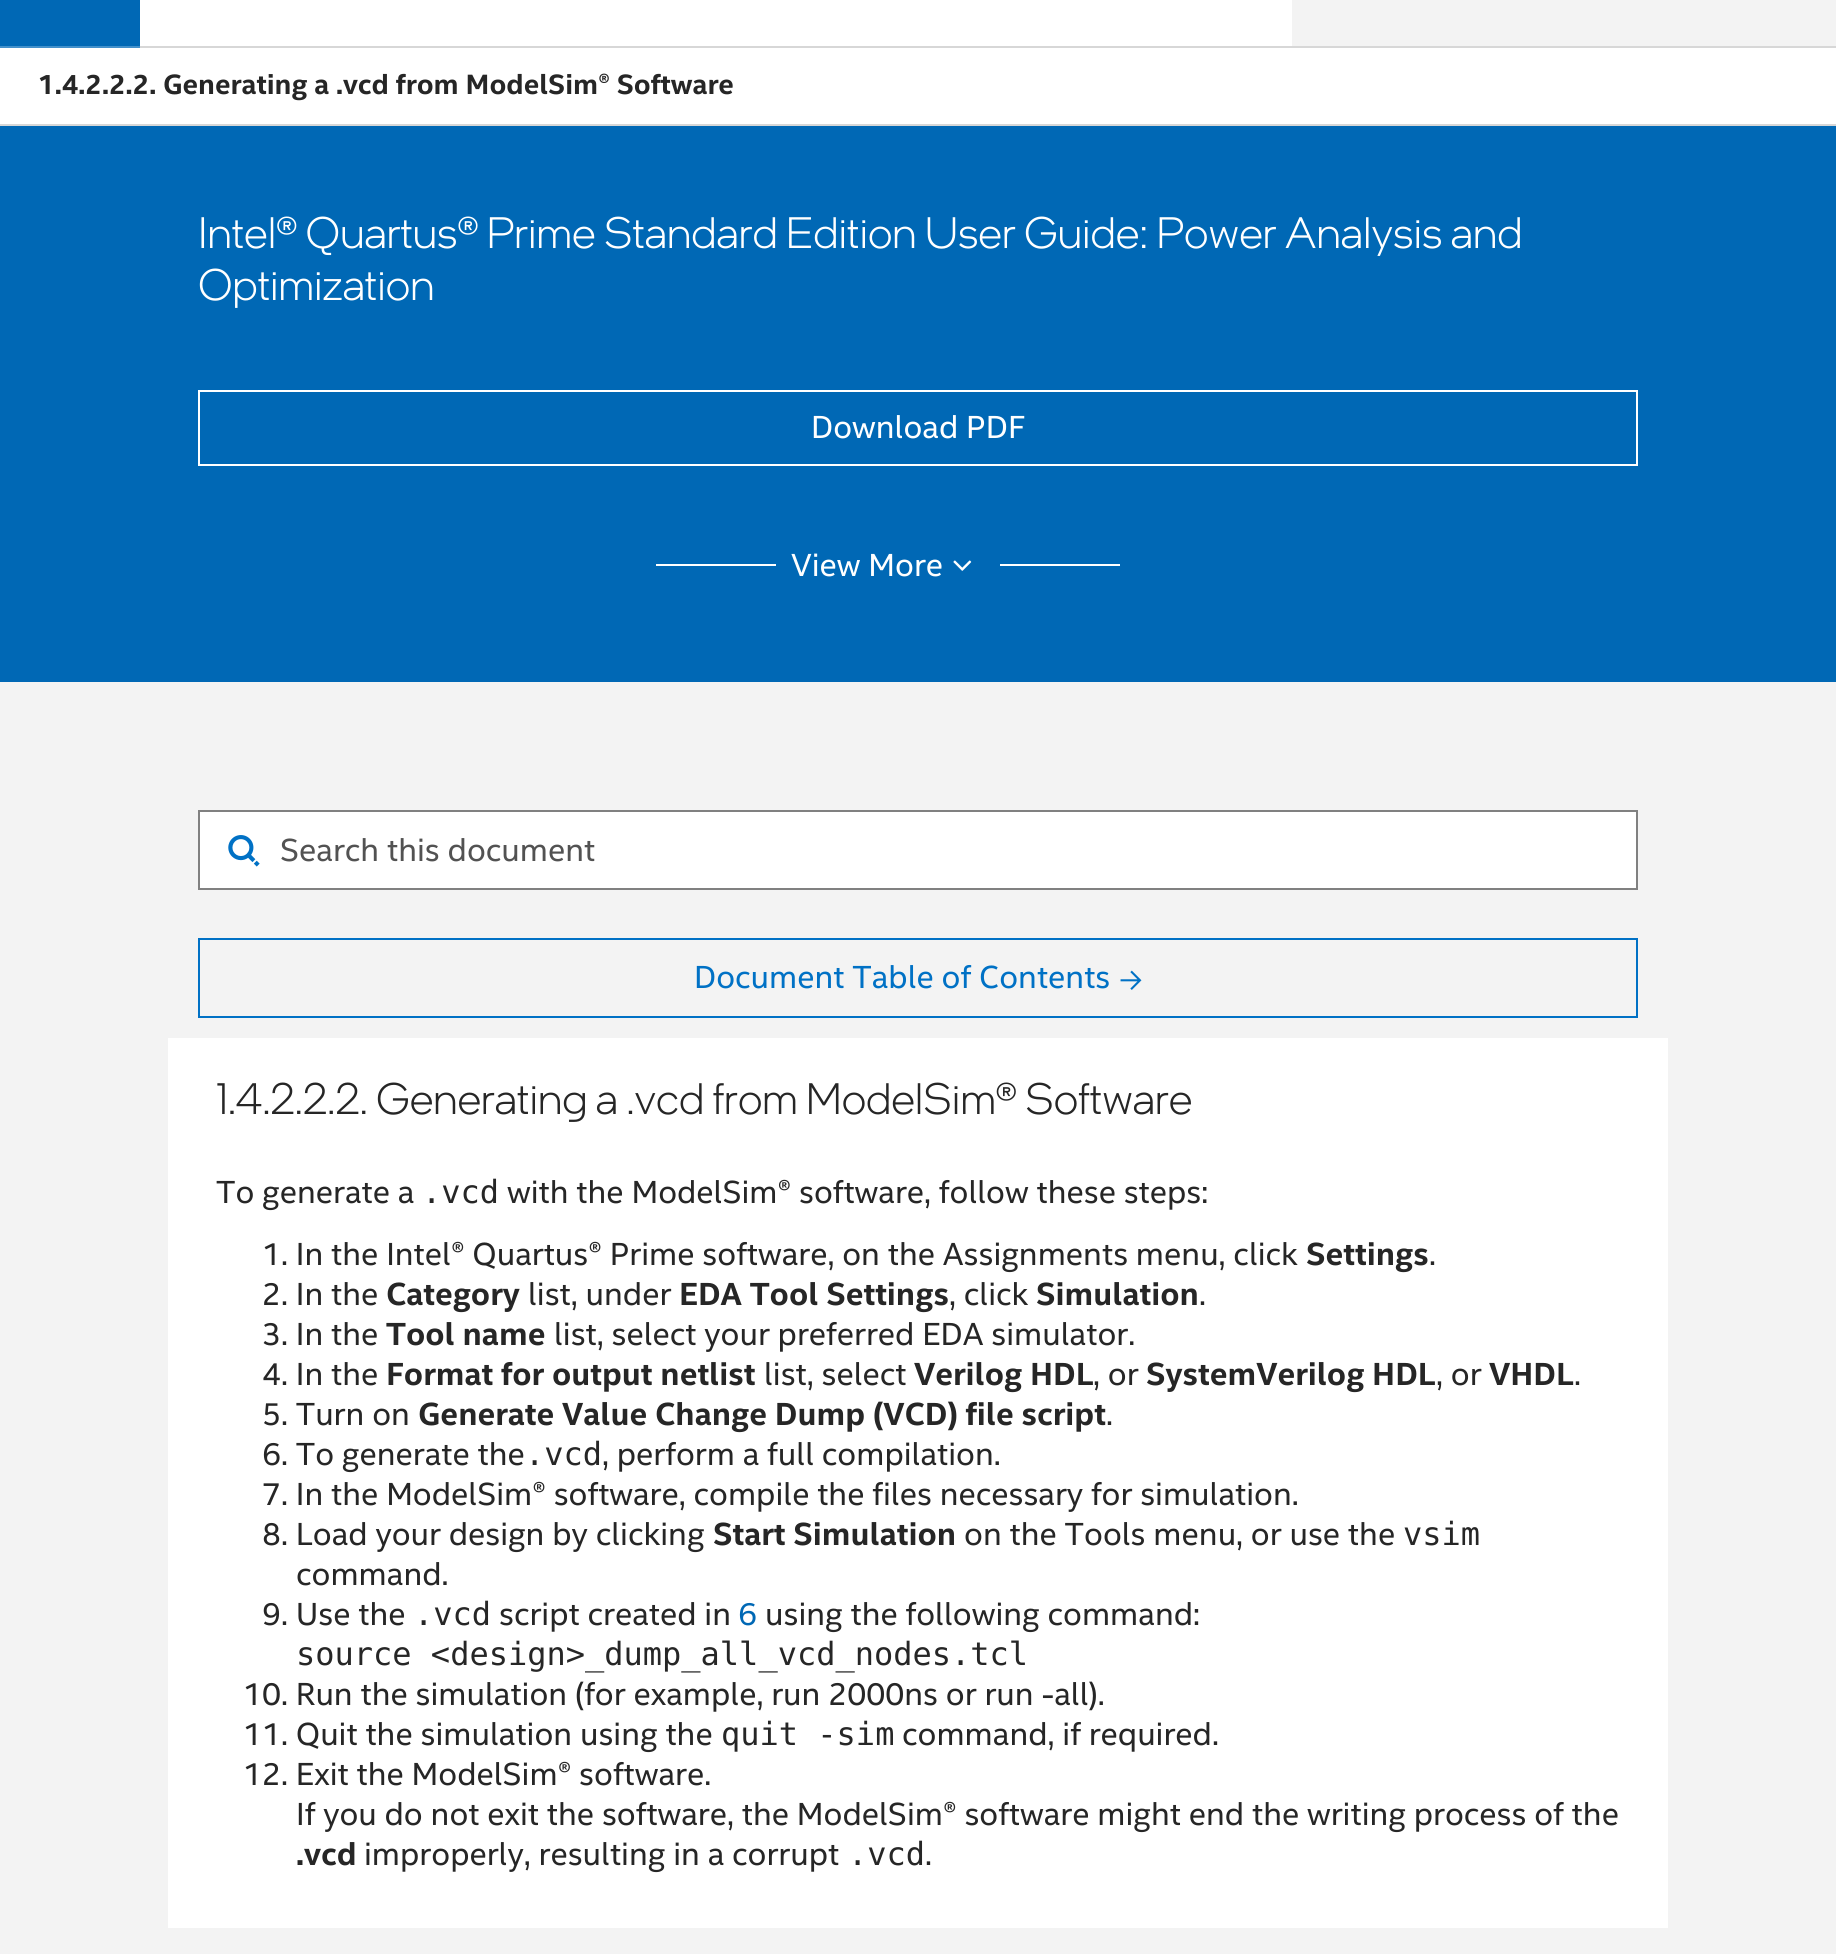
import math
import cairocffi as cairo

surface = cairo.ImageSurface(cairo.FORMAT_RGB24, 1836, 1954)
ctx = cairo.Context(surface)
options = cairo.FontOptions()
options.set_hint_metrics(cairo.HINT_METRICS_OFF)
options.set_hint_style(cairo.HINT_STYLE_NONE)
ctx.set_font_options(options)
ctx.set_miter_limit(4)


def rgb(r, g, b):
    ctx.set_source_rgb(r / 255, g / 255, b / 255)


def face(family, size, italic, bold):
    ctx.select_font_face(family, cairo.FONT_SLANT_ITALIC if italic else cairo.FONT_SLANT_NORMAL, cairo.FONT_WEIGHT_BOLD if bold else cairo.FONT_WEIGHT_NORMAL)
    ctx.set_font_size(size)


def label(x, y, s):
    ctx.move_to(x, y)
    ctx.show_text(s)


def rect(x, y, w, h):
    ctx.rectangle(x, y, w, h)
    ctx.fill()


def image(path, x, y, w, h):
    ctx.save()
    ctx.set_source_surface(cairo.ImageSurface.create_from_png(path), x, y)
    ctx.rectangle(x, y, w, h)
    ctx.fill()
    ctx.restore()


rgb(255, 255, 255)
ctx.paint()
rgb(215, 215, 215)
rect(140, 46, 1696, 2)
rgb(0, 104, 181)
rect(0, 0, 140, 46)
rgb(66, 144, 203)
rect(0, 46, 140, 2)
rgb(243, 243, 243)
rect(1292, 0, 544, 46)
rgb(215, 215, 215)
rect(0, 124, 1836, 2)
face('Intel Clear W', 28, 0, 1)
rgb(38, 38, 38)
label(38, 94, '1.4.2.2.2. Generating a .vcd from ModelSim® Software')
rgb(0, 104, 181)
rect(0, 126, 1836, 556)
face('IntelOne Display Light', 44, 0, 0)
rgb(255, 255, 255)
label(198, 248, 'Intel® Quartus® Prime Standard Edition User Guide: Power Analysis and')
label(198, 300, 'Optimization')
ctx.rectangle(199, 391, 1438, 74)
ctx.stroke()
face('Intel Clear W', 32, 0, 0)
label(811, 438, 'Download PDF')
rect(656, 564, 120, 2)
label(791, 576, 'View More')
image('image0.png', 953, 560, 19, 11)
rect(1000, 564, 120, 2)
rgb(243, 243, 243)
rect(0, 682, 1836, 1272)
rgb(255, 255, 255)
ctx.rectangle(199, 811, 1438, 78)
ctx.fill_preserve()
rgb(128, 128, 128)
ctx.stroke()
image('image1.png', 228, 835, 32, 32)
rgb(82, 82, 82)
label(280, 861, 'Search this document')
ctx.rectangle(199, 939, 1438, 78)
rgb(0, 113, 197)
ctx.stroke()
label(694, 988, 'Document Table of Contents')
image('image2.png', 1120, 970, 22, 20)
rgb(255, 255, 255)
rect(168, 1038, 1500, 890)
face('IntelOne Display Light', 44, 0, 0)
rgb(38, 38, 38)
label(216, 1114, '1.4.2.2.2. Generating a .vcd from ModelSim® Software')
face('Intel Clear W', 32, 0, 0)
label(216, 1203, 'To generate a')
face('DejaVu Sans Mono', 32, 0, 0)
label(422, 1203, '.vcd')
face('Intel Clear W', 32, 0, 0)
label(507, 1203, 'with the ModelSim® software, follow these steps:')
label(262, 1265, '1. In the Intel® Quartus® Prime software, on the Assignments menu, click')
face('Intel Clear W', 32, 0, 1)
label(1306, 1265, 'Settings')
face('Intel Clear W', 32, 0, 0)
label(1429, 1265, '.')
label(262, 1305, '2. In the')
face('Intel Clear W', 32, 0, 1)
label(386, 1305, 'Category')
face('Intel Clear W', 32, 0, 0)
label(528, 1305, 'list, under')
face('Intel Clear W', 32, 0, 1)
label(679, 1305, 'EDA Tool Settings')
face('Intel Clear W', 32, 0, 0)
label(949, 1305, ', click')
face('Intel Clear W', 32, 0, 1)
label(1036, 1305, 'Simulation')
face('Intel Clear W', 32, 0, 0)
label(1199, 1305, '.')
label(262, 1345, '3. In the')
face('Intel Clear W', 32, 0, 1)
label(386, 1345, 'Tool name')
face('Intel Clear W', 32, 0, 0)
label(554, 1345, 'list, select your preferred EDA simulator.')
label(262, 1385, '4. In the')
face('Intel Clear W', 32, 0, 1)
label(386, 1385, 'Format for output netlist')
face('Intel Clear W', 32, 0, 0)
label(764, 1385, 'list, select')
face('Intel Clear W', 32, 0, 1)
label(914, 1385, 'Verilog HDL')
face('Intel Clear W', 32, 0, 0)
label(1093, 1385, ', or')
face('Intel Clear W', 32, 0, 1)
label(1146, 1385, 'SystemVerilog HDL')
face('Intel Clear W', 32, 0, 0)
label(1436, 1385, ', or')
face('Intel Clear W', 32, 0, 1)
label(1489, 1385, 'VHDL')
face('Intel Clear W', 32, 0, 0)
label(1574, 1385, '.')
label(262, 1425, '5. Turn on')
face('Intel Clear W', 32, 0, 1)
label(418, 1425, 'Generate Value Change Dump (VCD) file script')
face('Intel Clear W', 32, 0, 0)
label(1106, 1425, '.')
label(262, 1465, '6. To generate the')
face('DejaVu Sans Mono', 32, 0, 0)
label(525, 1465, '.vcd')
face('Intel Clear W', 32, 0, 0)
label(602, 1465, ', perform a full compilation.')
label(262, 1505, '7. In the ModelSim® software, compile the files necessary for simulation.')
label(262, 1545, '8. Load your design by clicking')
face('Intel Clear W', 32, 0, 1)
label(713, 1545, 'Start Simulation')
face('Intel Clear W', 32, 0, 0)
label(964, 1545, 'on the Tools menu, or use the')
face('DejaVu Sans Mono', 32, 0, 0)
label(1403, 1545, 'vsim')
face('Intel Clear W', 32, 0, 0)
label(296, 1585, 'command.')
label(262, 1625, '9. Use the')
face('DejaVu Sans Mono', 32, 0, 0)
label(414, 1625, '.vcd')
face('Intel Clear W', 32, 0, 0)
label(499, 1625, 'script created in')
rgb(0, 104, 181)
label(738, 1625, '6')
rgb(38, 38, 38)
label(765, 1625, 'using the following command:')
face('DejaVu Sans Mono', 32, 0, 0)
label(296, 1665, 'source <design>_dump_all_vcd_nodes.tcl')
face('Intel Clear W', 32, 0, 0)
label(243, 1705, '10. Run the simulation (for example, run 2000ns or run -all).')
label(243, 1745, '11. Quit the simulation using the')
face('DejaVu Sans Mono', 32, 0, 0)
label(721, 1745, 'quit -sim')
face('Intel Clear W', 32, 0, 0)
label(902, 1745, 'command, if required.')
label(243, 1785, '12. Exit the ModelSim® software.')
label(296, 1825, 'If you do not exit the software, the ModelSim® software might end the writing process of the')
face('Intel Clear W', 32, 0, 1)
label(296, 1865, '.vcd')
face('Intel Clear W', 32, 0, 0)
label(364, 1865, 'improperly, resulting in a corrupt')
face('DejaVu Sans Mono', 32, 0, 0)
label(848, 1865, '.vcd')
face('Intel Clear W', 32, 0, 0)
label(925, 1865, '.')
surface.write_to_png('render.png')
